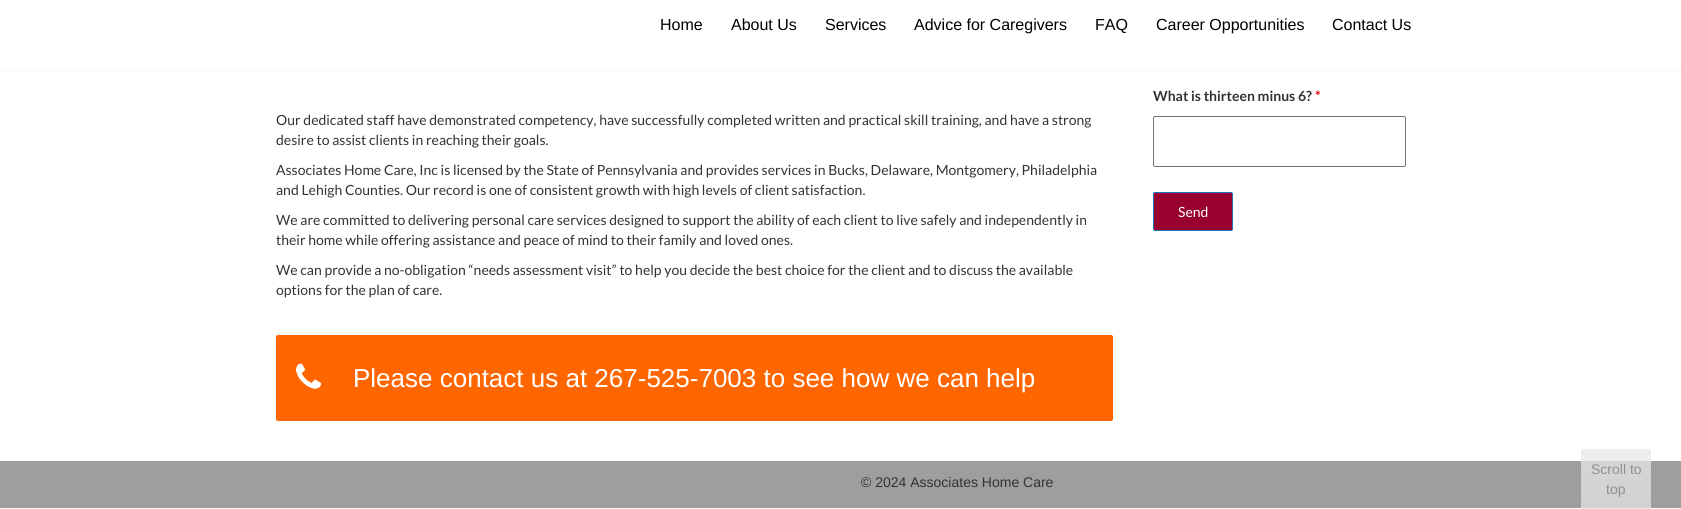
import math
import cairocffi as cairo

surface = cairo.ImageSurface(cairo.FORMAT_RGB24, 1681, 509)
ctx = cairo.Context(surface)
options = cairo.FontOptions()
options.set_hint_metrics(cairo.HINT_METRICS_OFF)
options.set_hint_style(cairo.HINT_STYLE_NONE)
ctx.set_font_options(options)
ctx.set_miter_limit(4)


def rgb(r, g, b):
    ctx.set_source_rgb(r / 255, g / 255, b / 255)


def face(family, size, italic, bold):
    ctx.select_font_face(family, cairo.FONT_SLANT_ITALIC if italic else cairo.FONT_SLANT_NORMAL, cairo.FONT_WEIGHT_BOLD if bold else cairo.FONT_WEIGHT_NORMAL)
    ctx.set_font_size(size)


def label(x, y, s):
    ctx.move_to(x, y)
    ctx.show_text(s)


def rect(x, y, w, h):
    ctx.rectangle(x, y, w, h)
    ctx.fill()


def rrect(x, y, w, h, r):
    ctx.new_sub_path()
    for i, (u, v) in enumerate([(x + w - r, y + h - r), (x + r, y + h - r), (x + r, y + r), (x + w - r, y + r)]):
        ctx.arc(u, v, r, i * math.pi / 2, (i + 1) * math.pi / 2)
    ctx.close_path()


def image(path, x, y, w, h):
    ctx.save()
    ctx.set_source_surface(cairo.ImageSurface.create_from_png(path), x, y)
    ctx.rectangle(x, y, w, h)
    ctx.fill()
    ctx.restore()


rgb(255, 255, 255)
ctx.paint()
rgb(243, 243, 243)
rect(1581, 449, 70, 60)
rgb(245, 245, 245)
rect(0, 70, 1681, 1)
face('Arimo', 16, 0, 0)
rgb(0, 0, 0)
label(660, 30, 'Home')
label(731, 30, 'About Us')
label(825, 30, 'Services')
label(914, 30, 'Advice for Caregivers')
label(1095, 30, 'FAQ')
label(1156, 30, 'Career Opportunities')
label(1332, 30, 'Contact Us')
face('Lato', 14, 0, 0)
rgb(51, 51, 51)
label(276, 125, 'Our dedicated staff have demonstrated competency, have successfully completed written and practical skill training, and have a strong')
label(276, 145, 'desire to assist clients in reaching their goals.')
label(276, 175, 'Associates Home Care, Inc is licensed by the State of Pennsylvania and provides services in Bucks, Delaware, Montgomery, Philadelphia')
label(276, 195, 'and Lehigh Counties. Our record is one of consistent growth with high levels of client satisfaction.')
label(276, 225, 'We are committed to delivering personal care services designed to support the ability of each client to live safely and independently in')
label(276, 245, 'their home while offering assistance and peace of mind to their family and loved ones.')
label(276, 275, 'We can provide a no-obligation “needs assessment visit” to help you decide the best choice for the client and to discuss the available')
label(276, 295, 'options for the plan of care.')
rgb(255, 102, 0)
rrect(276, 335, 837, 86, 2)
ctx.fill()
image('image0.png', 296, 363, 26, 26)
face('Liberation Sans', 26, 0, 0)
rgb(255, 255, 255)
label(353, 387, 'Please contact us at 267-525-7003 to see how we can help')
face('Lato', 14, 0, 1)
rgb(51, 51, 51)
label(1153, 101, 'What is thirteen minus 6?')
rgb(232, 0, 0)
label(1315, 101, '*')
rrect(1153.5, 116.5, 252, 50, 1.5)
rgb(118, 118, 118)
ctx.set_line_width(1)
ctx.stroke()
rgb(152, 0, 45)
rrect(1153.5, 192.5, 79, 38, 1.5)
ctx.fill_preserve()
rgb(30, 115, 190)
ctx.stroke()
face('Lato', 14, 0, 0)
rgb(255, 255, 255)
label(1178, 217, 'Send')
rgb(158, 158, 158)
rect(0, 461, 1681, 47)
rgb(194, 194, 194)
rect(1581, 461, 70, 47)
face('Arimo', 14, 0, 0)
rgb(51, 51, 51)
label(861, 487, '© 2024 Associates Home Care')
gradient = cairo.LinearGradient(1616, 449, 1616, 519)
gradient.add_color_stop_rgba(0, 0.922, 0.922, 0.922, 0.5)
gradient.add_color_stop_rgba(1, 0.871, 0.871, 0.871, 0.5)
ctx.set_source(gradient)
rect(1581, 449, 70, 60)
face('Liberation Sans', 14, 0, 0)
rgb(144, 144, 144)
label(1591, 474, 'Scroll to')
label(1606, 494, 'top')
surface.write_to_png('render.png')
